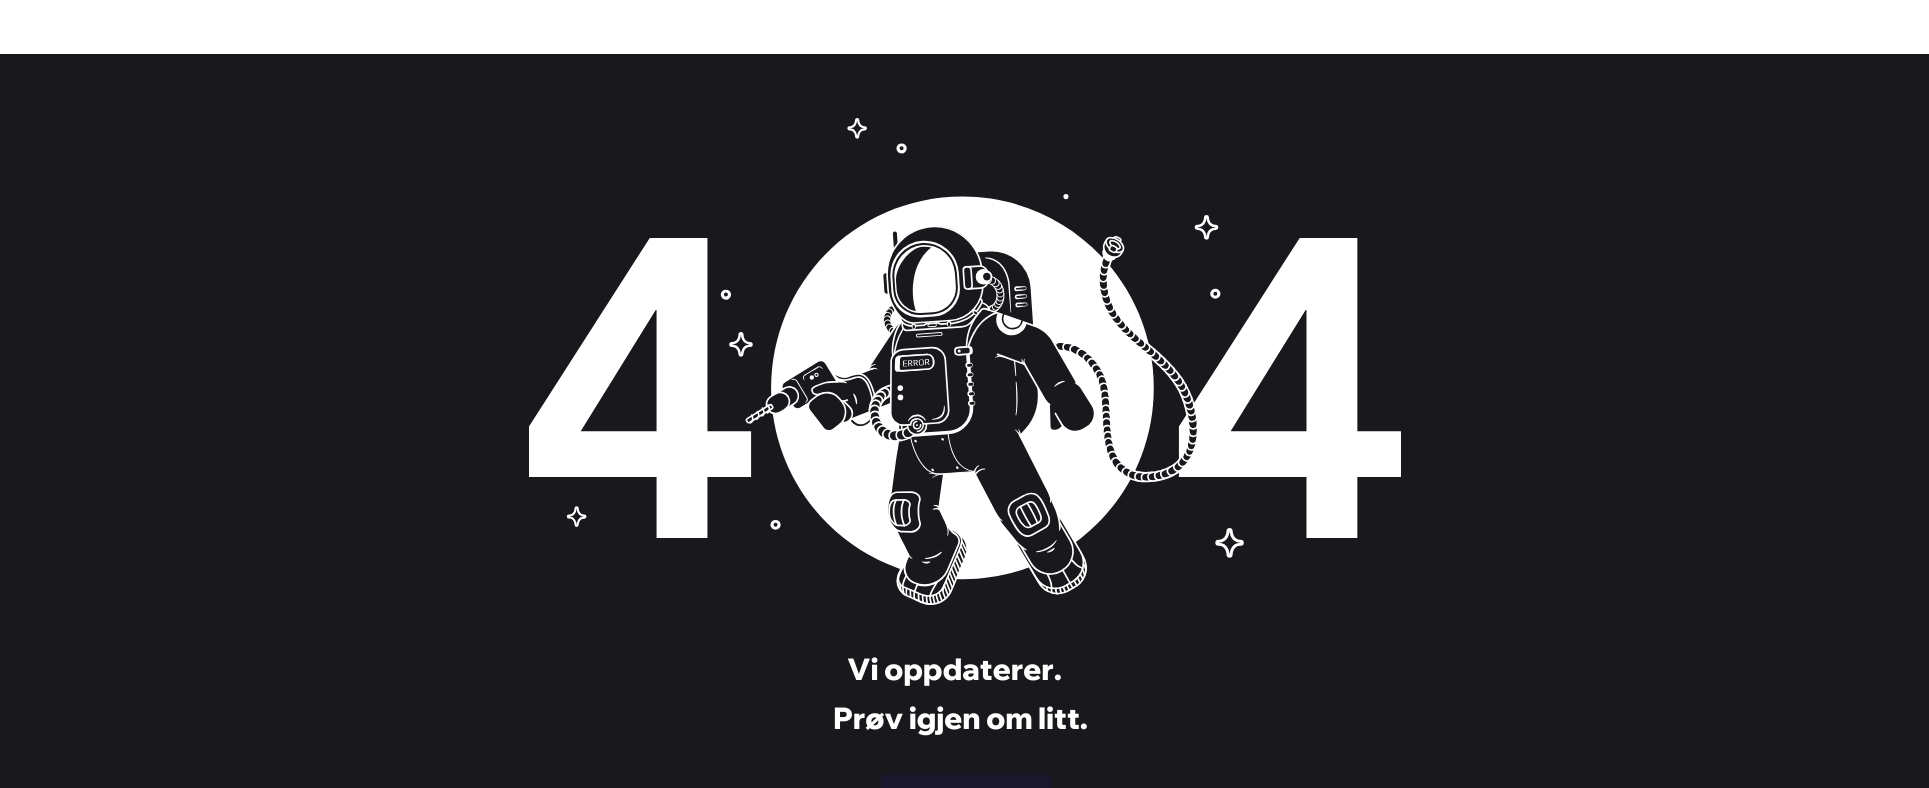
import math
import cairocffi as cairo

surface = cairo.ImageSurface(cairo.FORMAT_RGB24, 1929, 788)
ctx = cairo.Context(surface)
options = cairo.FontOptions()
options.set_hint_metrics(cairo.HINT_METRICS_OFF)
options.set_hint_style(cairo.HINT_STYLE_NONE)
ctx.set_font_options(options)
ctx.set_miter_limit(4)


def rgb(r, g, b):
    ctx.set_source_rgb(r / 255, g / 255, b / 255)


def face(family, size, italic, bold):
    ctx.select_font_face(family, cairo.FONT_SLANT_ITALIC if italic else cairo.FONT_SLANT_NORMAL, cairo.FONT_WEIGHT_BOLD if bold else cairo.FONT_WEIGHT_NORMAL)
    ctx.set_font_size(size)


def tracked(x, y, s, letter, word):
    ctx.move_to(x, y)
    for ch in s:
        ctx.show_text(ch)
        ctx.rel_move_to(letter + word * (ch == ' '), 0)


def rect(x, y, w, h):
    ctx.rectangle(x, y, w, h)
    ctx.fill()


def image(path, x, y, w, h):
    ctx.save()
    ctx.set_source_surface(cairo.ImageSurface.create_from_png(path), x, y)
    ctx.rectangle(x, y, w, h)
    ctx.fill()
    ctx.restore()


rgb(25, 24, 28)
ctx.paint()
rgb(255, 255, 255)
rect(0, 0, 1929, 54)
image('image0.png', 529, 118, 872, 487)
face('Wix Madefor Display ExtraBold', 30, 0, 0)
tracked(847, 680, 'Vi oppdaterer.', -0.25, 0)
tracked(833, 729, 'Prøv igjen om litt.', -0.25, 0)
rgb(26, 22, 44)
rect(881, 775, 170, 13)
surface.write_to_png('render.png')
